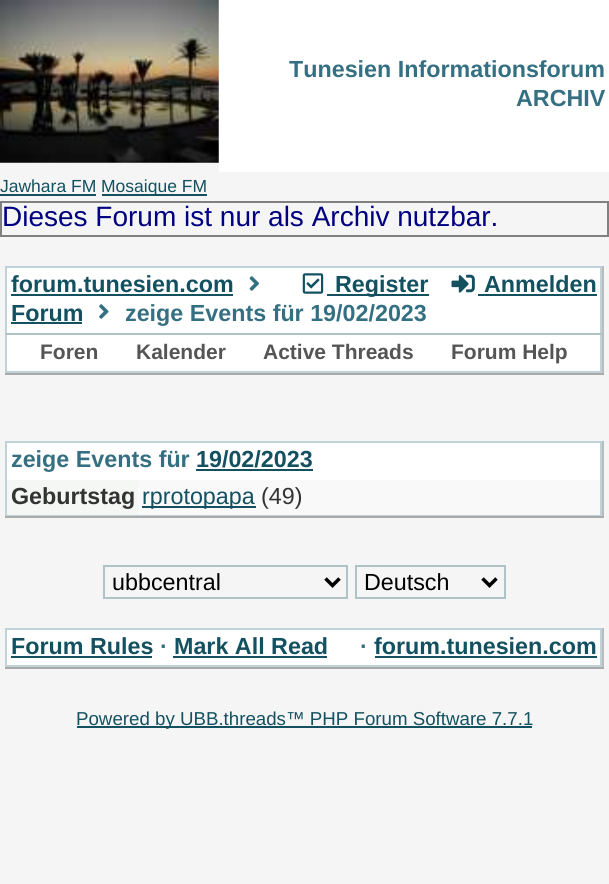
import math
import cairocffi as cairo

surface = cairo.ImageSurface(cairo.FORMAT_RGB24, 609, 884)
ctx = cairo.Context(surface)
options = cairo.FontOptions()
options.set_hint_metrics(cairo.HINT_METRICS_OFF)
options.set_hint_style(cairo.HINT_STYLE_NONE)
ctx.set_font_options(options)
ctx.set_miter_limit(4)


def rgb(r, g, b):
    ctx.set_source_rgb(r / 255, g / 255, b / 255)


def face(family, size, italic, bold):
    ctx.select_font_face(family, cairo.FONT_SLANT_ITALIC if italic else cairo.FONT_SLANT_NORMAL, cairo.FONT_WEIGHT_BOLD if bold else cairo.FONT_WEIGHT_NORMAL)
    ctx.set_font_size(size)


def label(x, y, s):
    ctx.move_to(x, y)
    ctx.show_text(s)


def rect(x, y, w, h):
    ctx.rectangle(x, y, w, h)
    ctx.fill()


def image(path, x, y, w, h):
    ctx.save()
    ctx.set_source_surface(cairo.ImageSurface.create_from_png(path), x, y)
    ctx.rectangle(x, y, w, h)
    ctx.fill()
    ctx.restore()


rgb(245, 245, 245)
ctx.paint()
image('image0.png', 0, 0, 219, 163)
rgb(255, 255, 255)
rect(219, 0, 390, 172)
face('Liberation Sans', 23.3, 0, 1)
rgb(53, 112, 130)
label(289, 77, 'Tunesien Informationsforum')
label(516, 106, 'ARCHIV')
face('Liberation Sans', 17.5, 0, 0)
rgb(19, 80, 96)
label(0, 192, 'Jawhara FM')
rect(0, 194, 96, 2)
rect(102, 194, 105, 2)
label(101, 192, 'Mosaique FM')
rgb(128, 128, 128)
rect(0, 201, 609, 2)
rect(607, 201, 2, 35)
rect(0, 235, 609, 2)
rect(0, 201, 2, 35)
face('Liberation Sans', 28, 0, 0)
rgb(0, 0, 128)
label(2, 226, 'Dieses Forum ist nur als Archiv nutzbar.')
rgb(187, 187, 187)
rect(602, 266, 2, 109)
rgb(170, 170, 170)
rect(5, 373, 599, 2)
rgb(191, 210, 215)
rect(5, 268, 595, 105)
rect(5, 266, 597, 2)
rect(600, 266, 2, 107)
rgb(255, 255, 255)
rect(7, 268, 593, 65)
face('Liberation Sans', 23.3, 0, 1)
rgb(19, 80, 96)
label(11, 292, 'forum.tunesien.com')
rect(11, 294, 222, 2)
image('image1.png', 249, 276, 10, 15)
label(11, 321, 'Forum')
rect(11, 322, 71, 2)
image('image2.png', 99, 304, 10, 15)
rgb(53, 112, 130)
label(125, 321, 'zeige Events für 19/02/2023')
image('image3.png', 302, 273, 22, 21)
rgb(19, 80, 96)
rect(327, 294, 102, 2)
label(335, 292, 'Register')
image('image4.png', 451, 274, 24, 19)
label(484, 292, 'Anmelden')
rect(478, 294, 119, 2)
rgb(255, 255, 255)
rect(7, 335, 593, 36)
rgb(175, 194, 199)
rect(5, 333, 597, 2)
face('Liberation Sans', 21, 0, 1)
rgb(85, 85, 85)
label(40, 359, 'Foren')
label(136, 359, 'Kalender')
label(263, 359, 'Active Threads')
label(451, 359, 'Forum Help')
rgb(187, 187, 187)
rect(602, 441, 2, 77)
rgb(170, 170, 170)
rect(5, 516, 599, 2)
rgb(191, 210, 215)
rect(5, 441, 595, 74)
rect(600, 441, 2, 75)
rect(5, 515, 597, 1)
rgb(255, 255, 255)
rect(7, 443, 593, 37)
face('Liberation Sans', 23.3, 0, 1)
rgb(53, 112, 130)
label(11, 467, 'zeige Events für')
rgb(19, 80, 96)
label(196, 467, '19/02/2023')
rect(196, 469, 117, 2)
rgb(244, 247, 244)
rect(7, 480, 131, 35)
rgb(51, 51, 51)
label(11, 504, 'Geburtstag')
rgb(249, 249, 249)
rect(138, 480, 462, 35)
rgb(19, 80, 96)
rect(142, 506, 114, 2)
face('Liberation Sans', 23.3, 0, 0)
label(142, 504, 'rprotopapa')
rgb(51, 51, 51)
label(261, 504, '(49)')
ctx.rectangle(104, 566, 243, 32)
rgb(175, 194, 199)
ctx.stroke()
ctx.new_path()
ctx.move_to(325.5, 578.5)
ctx.line_to(332.5, 585.5)
ctx.line_to(339.5, 578.5)
rgb(0, 0, 0)
ctx.set_line_width(3.5)
ctx.stroke()
label(112, 590, 'ubbcentral')
ctx.rectangle(356, 566, 149, 32)
rgb(175, 194, 199)
ctx.set_line_width(2)
ctx.stroke()
ctx.new_path()
ctx.move_to(482.5, 578.5)
ctx.line_to(489.5, 585.5)
ctx.line_to(496.5, 578.5)
rgb(0, 0, 0)
ctx.set_line_width(3.5)
ctx.stroke()
label(364, 590, 'Deutsch')
rgb(187, 187, 187)
rect(602, 628, 2, 41)
rgb(170, 170, 170)
rect(5, 667, 599, 2)
rgb(191, 210, 215)
rect(5, 630, 2, 35)
rect(5, 628, 597, 2)
rect(600, 628, 2, 39)
rect(5, 665, 597, 2)
rgb(255, 255, 255)
rect(7, 630, 593, 35)
face('Liberation Sans', 23.3, 0, 1)
rgb(19, 80, 96)
label(11, 654, 'Forum Rules')
rect(11, 656, 141, 2)
rgb(53, 112, 130)
label(160, 654, '·')
rgb(19, 80, 96)
label(174, 654, 'Mark All Read')
rect(173, 656, 154, 2)
rgb(53, 112, 130)
label(360, 654, '·')
rgb(19, 80, 96)
label(374, 654, 'forum.tunesien.com')
rect(375, 656, 222, 2)
rect(77, 726, 455, 2)
face('Liberation Sans', 18.7, 0, 0)
label(76, 725, 'Powered by UBB.threads™ PHP Forum Software 7.7.1')
surface.write_to_png('render.png')
